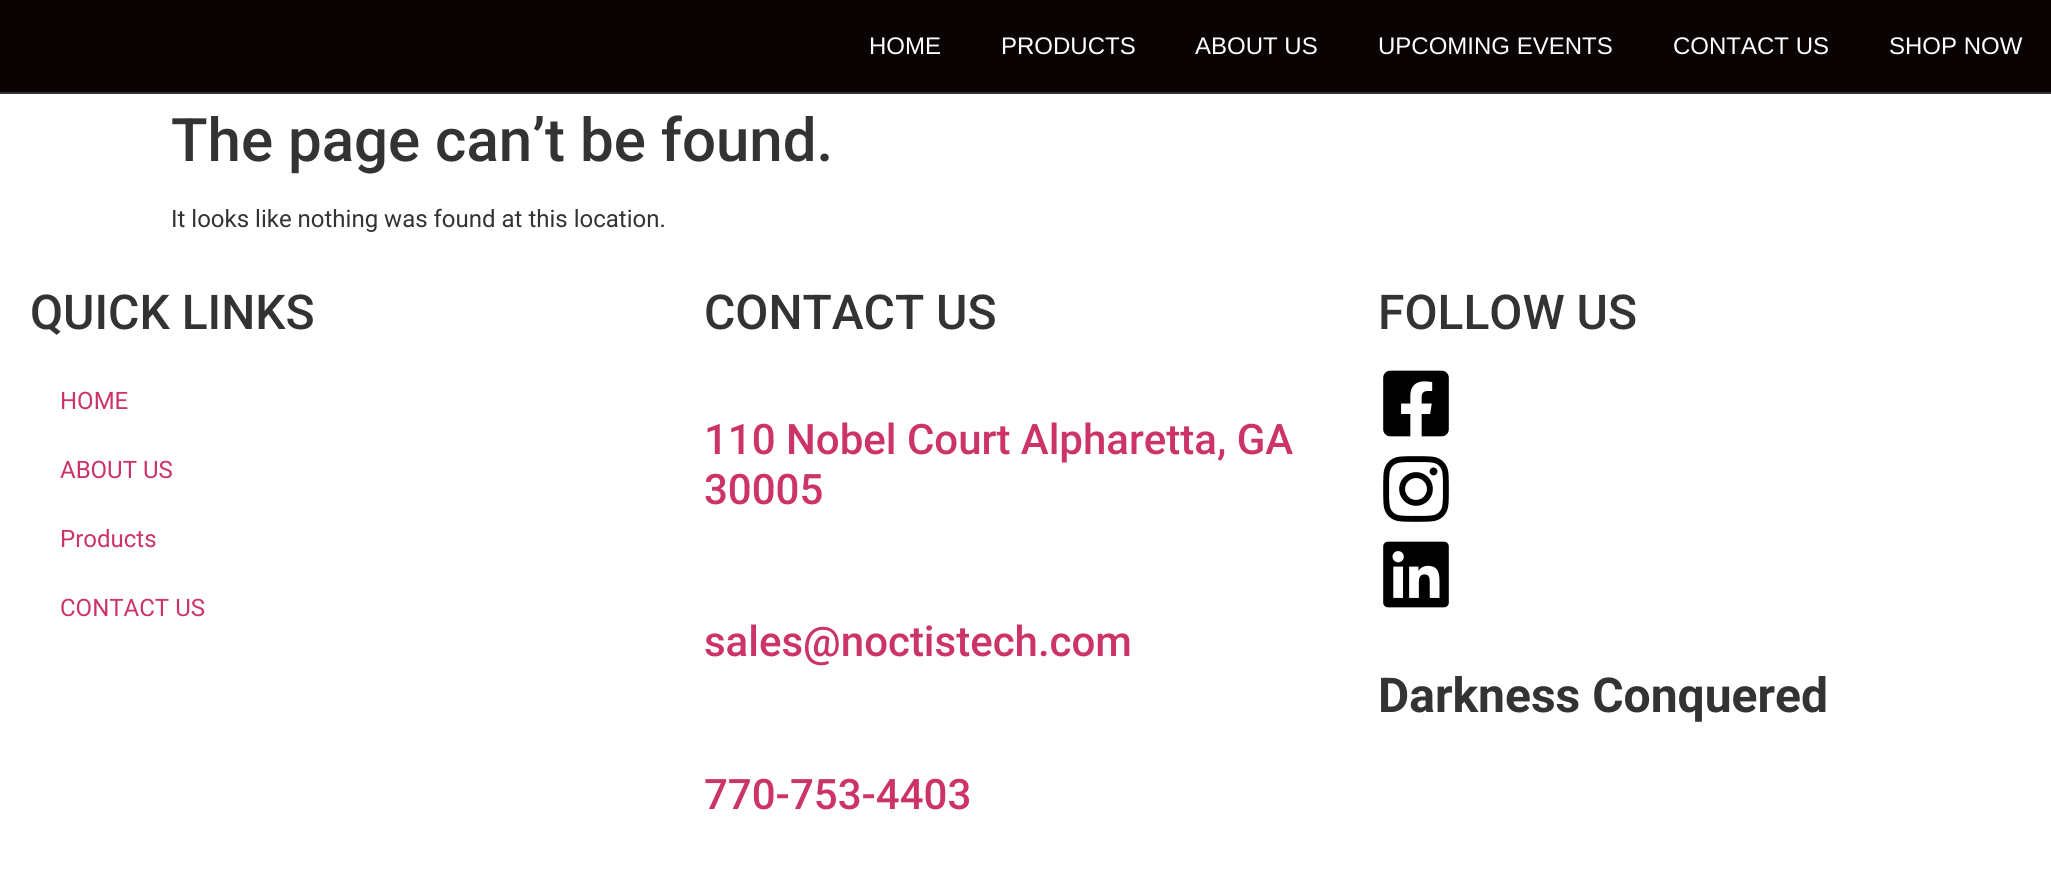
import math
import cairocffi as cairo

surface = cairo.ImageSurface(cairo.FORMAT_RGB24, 2051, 888)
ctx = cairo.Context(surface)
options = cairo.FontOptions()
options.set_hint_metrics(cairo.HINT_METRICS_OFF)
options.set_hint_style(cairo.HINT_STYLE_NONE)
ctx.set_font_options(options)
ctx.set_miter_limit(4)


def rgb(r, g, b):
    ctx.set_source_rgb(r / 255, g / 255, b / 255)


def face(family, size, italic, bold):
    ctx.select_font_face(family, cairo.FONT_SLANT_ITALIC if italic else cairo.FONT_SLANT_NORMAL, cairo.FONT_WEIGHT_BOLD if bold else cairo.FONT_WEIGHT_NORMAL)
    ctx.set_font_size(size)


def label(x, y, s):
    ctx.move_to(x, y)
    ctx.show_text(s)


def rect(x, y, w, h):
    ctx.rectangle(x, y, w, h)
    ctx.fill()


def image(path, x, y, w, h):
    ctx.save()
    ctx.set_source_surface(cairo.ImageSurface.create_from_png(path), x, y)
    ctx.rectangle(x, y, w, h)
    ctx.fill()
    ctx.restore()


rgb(255, 255, 255)
ctx.paint()
rgb(9, 3, 3)
rect(0, 0, 2051, 92)
rgb(52, 52, 52)
rect(0, 92, 2051, 2)
face('Liberation Sans', 24, 0, 0)
rgb(255, 255, 255)
label(869, 54, 'HOME')
label(1001, 54, 'PRODUCTS')
label(1195, 54, 'ABOUT US')
label(1378, 54, 'UPCOMING EVENTS')
label(1673, 54, 'CONTACT US')
label(1889, 54, 'SHOP NOW')
face('Roboto Medium', 60, 0, 0)
rgb(51, 51, 51)
label(171, 161, 'The page can’t be found.')
face('Roboto', 24, 0, 0)
label(171, 227, 'It looks like nothing was found at this location.')
face('Roboto Medium', 48, 0, 0)
label(30, 329, 'QUICK LINKS')
face('Roboto', 24, 0, 0)
rgb(204, 51, 102)
label(60, 409, 'HOME')
label(60, 478, 'ABOUT US')
label(60, 547, 'Products')
label(60, 616, 'CONTACT US')
face('Roboto Medium', 48, 0, 0)
rgb(51, 51, 51)
label(704, 329, 'CONTACT US')
face('Roboto Medium', 42, 0, 0)
rgb(204, 51, 102)
label(704, 454, '110 Nobel Court Alpharetta, GA')
label(704, 504, '30005')
label(704, 656, 'sales@noctistech.com')
label(704, 809, '770-753-4403')
face('Roboto Medium', 48, 0, 0)
rgb(51, 51, 51)
label(1378, 329, 'FOLLOW US')
image('image0.png', 1383, 370, 66, 67)
image('image1.png', 1383, 456, 66, 66)
image('image2.png', 1383, 541, 66, 67)
face('Roboto', 48, 0, 1)
label(1378, 712, 'Darkness Conquered')
surface.write_to_png('render.png')
